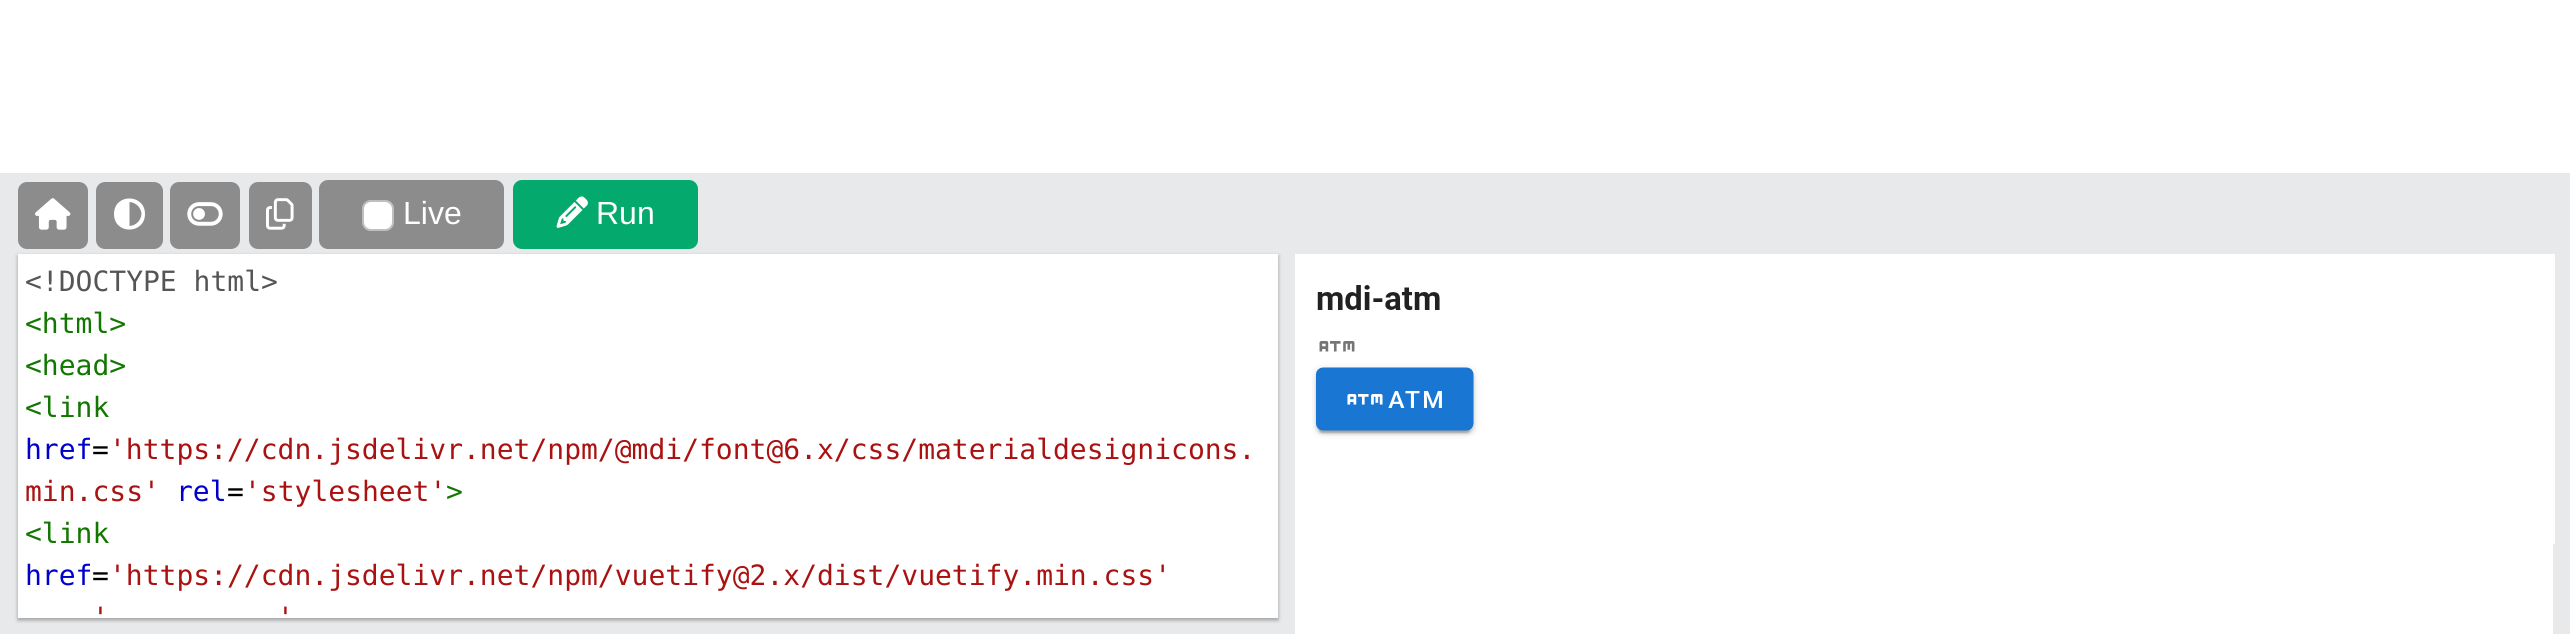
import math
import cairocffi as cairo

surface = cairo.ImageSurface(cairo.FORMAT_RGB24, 2570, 634)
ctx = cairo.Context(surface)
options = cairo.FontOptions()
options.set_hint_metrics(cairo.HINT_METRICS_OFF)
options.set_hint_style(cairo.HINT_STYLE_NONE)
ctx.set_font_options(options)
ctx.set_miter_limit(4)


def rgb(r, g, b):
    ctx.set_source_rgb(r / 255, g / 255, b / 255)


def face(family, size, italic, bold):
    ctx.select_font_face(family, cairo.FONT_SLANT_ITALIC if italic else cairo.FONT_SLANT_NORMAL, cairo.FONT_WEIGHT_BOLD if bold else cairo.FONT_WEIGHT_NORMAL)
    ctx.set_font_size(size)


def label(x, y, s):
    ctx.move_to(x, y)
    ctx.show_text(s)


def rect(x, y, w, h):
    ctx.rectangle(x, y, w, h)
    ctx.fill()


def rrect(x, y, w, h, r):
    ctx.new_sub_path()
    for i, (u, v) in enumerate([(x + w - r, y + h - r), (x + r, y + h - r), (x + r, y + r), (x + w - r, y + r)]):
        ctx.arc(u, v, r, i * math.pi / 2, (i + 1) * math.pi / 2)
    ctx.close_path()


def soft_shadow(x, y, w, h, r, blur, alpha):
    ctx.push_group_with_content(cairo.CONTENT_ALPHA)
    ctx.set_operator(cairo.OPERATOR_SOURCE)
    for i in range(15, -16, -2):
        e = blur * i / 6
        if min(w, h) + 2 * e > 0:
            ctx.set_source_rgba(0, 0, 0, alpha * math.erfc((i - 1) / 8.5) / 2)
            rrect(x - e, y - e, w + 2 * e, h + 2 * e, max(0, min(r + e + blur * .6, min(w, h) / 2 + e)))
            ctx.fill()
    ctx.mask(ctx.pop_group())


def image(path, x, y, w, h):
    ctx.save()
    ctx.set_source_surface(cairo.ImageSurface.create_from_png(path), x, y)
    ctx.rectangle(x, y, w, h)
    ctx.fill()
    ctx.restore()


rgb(255, 255, 255)
ctx.paint()
rgb(231, 233, 235)
rect(0, 173, 2570, 461)
rgb(140, 140, 140)
rrect(18, 182, 70, 67, 9)
ctx.fill()
image('image0.png', 35, 198, 36, 32)
rrect(96, 182, 67, 67, 9)
ctx.fill()
rgb(255, 255, 255)
ctx.new_path()
ctx.move_to(141.5, 214)
ctx.curve_to(141, 207.5, 136, 202.5, 129.5, 202)
ctx.line_to(129.5, 226)
ctx.curve_to(136, 225.5, 141, 220.5, 141.5, 214)
ctx.close_path()
ctx.move_to(114, 214)
ctx.curve_to(114, 193, 145, 193.5, 145, 214)
ctx.curve_to(145, 234.5, 114, 235, 114, 214)
ctx.close_path()
ctx.fill()
rgb(140, 140, 140)
rrect(170, 182, 70, 67, 9)
ctx.fill()
image('image1.png', 187, 202, 36, 24)
rrect(249, 182, 63, 67, 9)
ctx.fill()
image('image2.png', 266, 198, 28, 32)
rrect(319, 180, 185, 69, 9)
ctx.fill()
rgb(255, 255, 255)
rrect(362, 200, 32, 31, 9)
ctx.fill()
rrect(363, 201, 30, 29, 8)
ctx.set_source_rgba(0, 0, 0, 0.25)
ctx.stroke()
face('Liberation Sans', 32, 0, 0)
rgb(255, 255, 255)
label(403, 224, 'Live')
rgb(4, 170, 109)
rrect(513, 180, 185, 69, 9)
ctx.fill()
image('image3.png', 556, 196, 32, 32)
rgb(255, 255, 255)
label(596, 224, 'Run')
rgb(0, 0, 0)
soft_shadow(18, 256, 1260, 364, 0, 2, 0.24)
soft_shadow(18, 256, 1260, 364, 0, 2.5, 0.12)
rgb(255, 255, 255)
rect(18, 254, 1260, 364)
face('DejaVu Sans Mono', 28, 0, 0)
rgb(85, 85, 85)
label(25, 291, '<!DOCTYPE html>')
rgb(17, 119, 0)
label(25, 333, '<html>')
label(25, 375, '<head>')
label(25, 417, '<link')
rgb(0, 0, 204)
label(25, 459, 'href')
rgb(0, 0, 0)
label(92, 459, '=')
rgb(170, 17, 17)
label(109, 459, '\'https://cdn.jsdelivr.net/npm/@mdi/font@6.x/css/materialdesignicons.')
label(25, 501, 'min.css\'')
rgb(0, 0, 204)
label(176, 501, 'rel')
rgb(0, 0, 0)
label(227, 501, '=')
rgb(170, 17, 17)
label(244, 501, '\'stylesheet\'')
rgb(17, 119, 0)
label(446, 501, '>')
label(25, 543, '<link')
rgb(0, 0, 204)
label(25, 585, 'href')
rgb(0, 0, 0)
label(92, 585, '=')
rgb(170, 17, 17)
label(109, 585, '\'https://cdn.jsdelivr.net/npm/vuetify@2.x/dist/vuetify.min.css\'')
label(92, 627, '\'')
label(277, 627, '\'')
rgb(255, 255, 255)
rect(1295, 254, 17, 290)
image('image4.png', 1312, 254, 1243, 290)
rect(1295, 544, 1258, 90)
surface.write_to_png('render.png')
